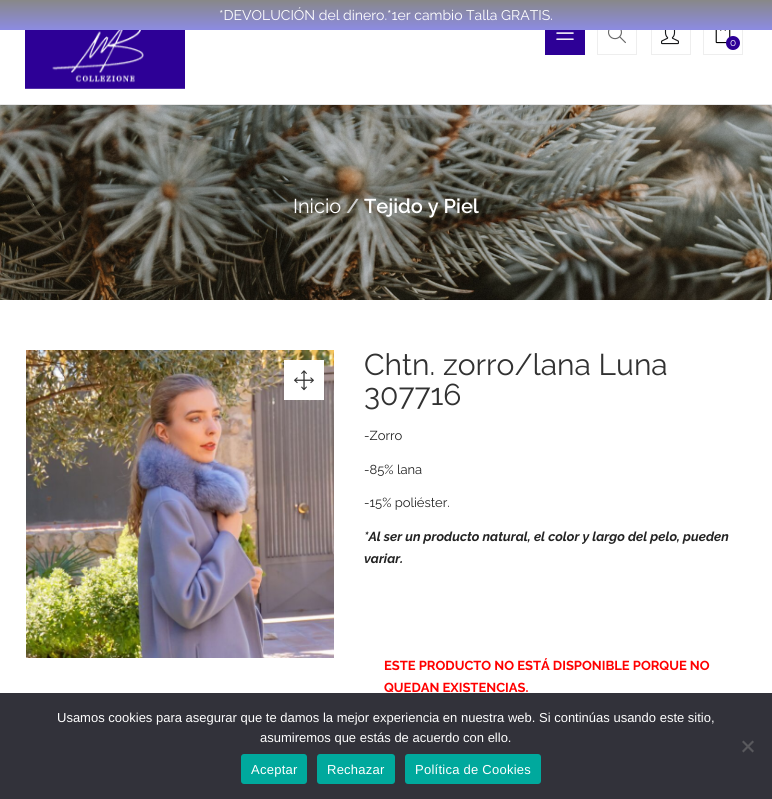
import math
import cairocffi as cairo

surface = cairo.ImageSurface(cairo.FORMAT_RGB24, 772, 799)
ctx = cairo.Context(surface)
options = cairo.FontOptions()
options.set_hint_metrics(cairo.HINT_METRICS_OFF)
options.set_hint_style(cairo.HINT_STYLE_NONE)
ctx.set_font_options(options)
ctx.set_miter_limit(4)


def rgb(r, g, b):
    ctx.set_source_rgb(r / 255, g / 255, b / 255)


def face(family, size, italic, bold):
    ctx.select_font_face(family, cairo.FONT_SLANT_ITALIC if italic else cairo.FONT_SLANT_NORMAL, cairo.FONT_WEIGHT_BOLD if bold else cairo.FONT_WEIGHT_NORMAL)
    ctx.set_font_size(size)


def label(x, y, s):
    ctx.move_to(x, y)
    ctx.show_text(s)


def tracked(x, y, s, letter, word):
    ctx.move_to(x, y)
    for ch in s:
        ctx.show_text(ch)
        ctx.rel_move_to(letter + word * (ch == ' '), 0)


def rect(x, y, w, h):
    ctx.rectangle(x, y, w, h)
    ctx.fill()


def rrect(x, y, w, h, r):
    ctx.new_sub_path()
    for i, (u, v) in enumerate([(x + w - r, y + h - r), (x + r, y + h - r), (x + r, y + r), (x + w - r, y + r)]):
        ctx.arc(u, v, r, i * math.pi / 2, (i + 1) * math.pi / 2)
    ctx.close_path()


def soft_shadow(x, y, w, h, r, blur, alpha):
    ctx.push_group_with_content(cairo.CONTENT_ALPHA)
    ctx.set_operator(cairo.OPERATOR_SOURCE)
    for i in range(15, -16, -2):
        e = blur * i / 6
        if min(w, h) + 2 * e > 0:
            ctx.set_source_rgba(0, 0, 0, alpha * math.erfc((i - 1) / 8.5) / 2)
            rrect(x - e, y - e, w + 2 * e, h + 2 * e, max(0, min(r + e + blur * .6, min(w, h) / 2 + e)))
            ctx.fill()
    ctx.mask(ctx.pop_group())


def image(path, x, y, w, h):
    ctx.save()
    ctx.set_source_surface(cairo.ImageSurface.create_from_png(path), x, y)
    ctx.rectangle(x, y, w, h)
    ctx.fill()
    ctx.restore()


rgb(255, 255, 255)
ctx.paint()
image('image5.png', 0, 105, 772, 195)
rgb(0, 0, 0)
soft_shadow(0, 2, 772, 105, 0, 5, 0.06)
rgb(255, 255, 255)
rect(0, 30, 772, 74)
ctx.rectangle(597.5, 15.5, 39, 39)
rgb(238, 238, 238)
ctx.set_line_width(1)
ctx.stroke()
ctx.rectangle(651.5, 15.5, 39, 39)
ctx.stroke()
ctx.rectangle(703.5, 15.5, 39, 39)
ctx.stroke()
gradient = cairo.LinearGradient(386, 0, 386, 30)
gradient.add_color_stop_rgba(0, 0.533, 0.533, 0.533, 1)
gradient.add_color_stop_rgba(1, 0.549, 0.545, 0.89, 1)
ctx.set_source(gradient)
rect(0, 0, 772, 30)
face('Raleway', 14, 0, 0)
rgb(255, 255, 255)
label(219, 20, '*DEVOLUCIÓN del dinero.*1er cambio Talla GRATIS.')
rgb(232, 232, 232)
rect(0, 104, 772, 1)
image('image0.png', 25, 30, 160, 59)
rgb(45, 0, 150)
rect(545, 30, 40, 25)
image('image1.png', 556, 32, 18, 8)
image('image2.png', 608, 30, 18, 14)
image('image3.png', 661, 30, 18, 15)
image('image4.png', 715, 30, 16, 14)
ctx.arc(733, 43, 7, 0, 2 * math.pi)
ctx.fill()
face('Raleway', 10, 0, 0)
rgb(255, 255, 255)
label(730, 46, '0')
face('Raleway', 20, 0, 0)
label(293, 213, 'Inicio')
face('Raleway SemiBold', 20, 0, 0)
rgb(204, 204, 204)
label(346, 213, '/')
rgb(255, 255, 255)
label(364, 213, 'Tejido y Piel')
image('image6.png', 26, 350, 308, 308)
rect(284, 360, 40, 40)
image('image7.png', 294, 370, 20, 21)
face('Raleway', 30, 0, 0)
rgb(50, 50, 50)
label(364, 375, 'Chtn. zorro/lana Luna')
label(364, 405, '307716')
face('Raleway', 13, 0, 0)
rgb(35, 35, 35)
label(364, 440, '-Zorro')
label(364, 474, '-85% lana')
label(364, 507, '-15% poliéster.')
face('Raleway', 13, 1, 1)
label(364, 541, '*Al ser un producto natural, el color y largo del pelo, pueden')
label(364, 563, 'variar.')
face('Raleway', 13, 0, 1)
rgb(255, 0, 0)
label(384, 670, 'ESTE PRODUCTO NO ESTÁ DISPONIBLE PORQUE NO')
label(384, 692, 'QUEDAN EXISTENCIAS.')
rgb(50, 50, 58)
rect(0, 693, 772, 106)
face('Liberation Sans', 13, 0, 0)
rgb(255, 255, 255)
label(57, 722, 'Usamos cookies para asegurar que te damos la mejor experiencia en nuestra web. Si continúas usando este sitio,')
label(260, 742, 'asumiremos que estás de acuerdo con ello.')
rgb(89, 89, 93)
ctx.new_path()
ctx.move_to(752.5, 740.5)
ctx.line_to(754, 742)
ctx.line_to(743.5, 752.5)
ctx.line_to(742, 751)
ctx.close_path()
ctx.fill()
ctx.new_path()
ctx.move_to(742, 742)
ctx.line_to(743.5, 740.5)
ctx.line_to(754, 751)
ctx.line_to(752.5, 752.5)
ctx.close_path()
ctx.fill()
rgb(0, 169, 157)
rrect(241, 754, 66, 30, 3)
ctx.fill()
rgb(255, 255, 255)
tracked(251, 774, 'Aceptar', 0.25, 0)
rgb(0, 169, 157)
rrect(317, 754, 78, 30, 3)
ctx.fill()
rgb(255, 255, 255)
tracked(327, 774, 'Rechazar', 0.25, 0)
rgb(0, 169, 157)
rrect(405, 754, 136, 30, 3)
ctx.fill()
rgb(255, 255, 255)
tracked(415, 774, 'Política de Cookies', 0.25, 0)
surface.write_to_png('render.png')
